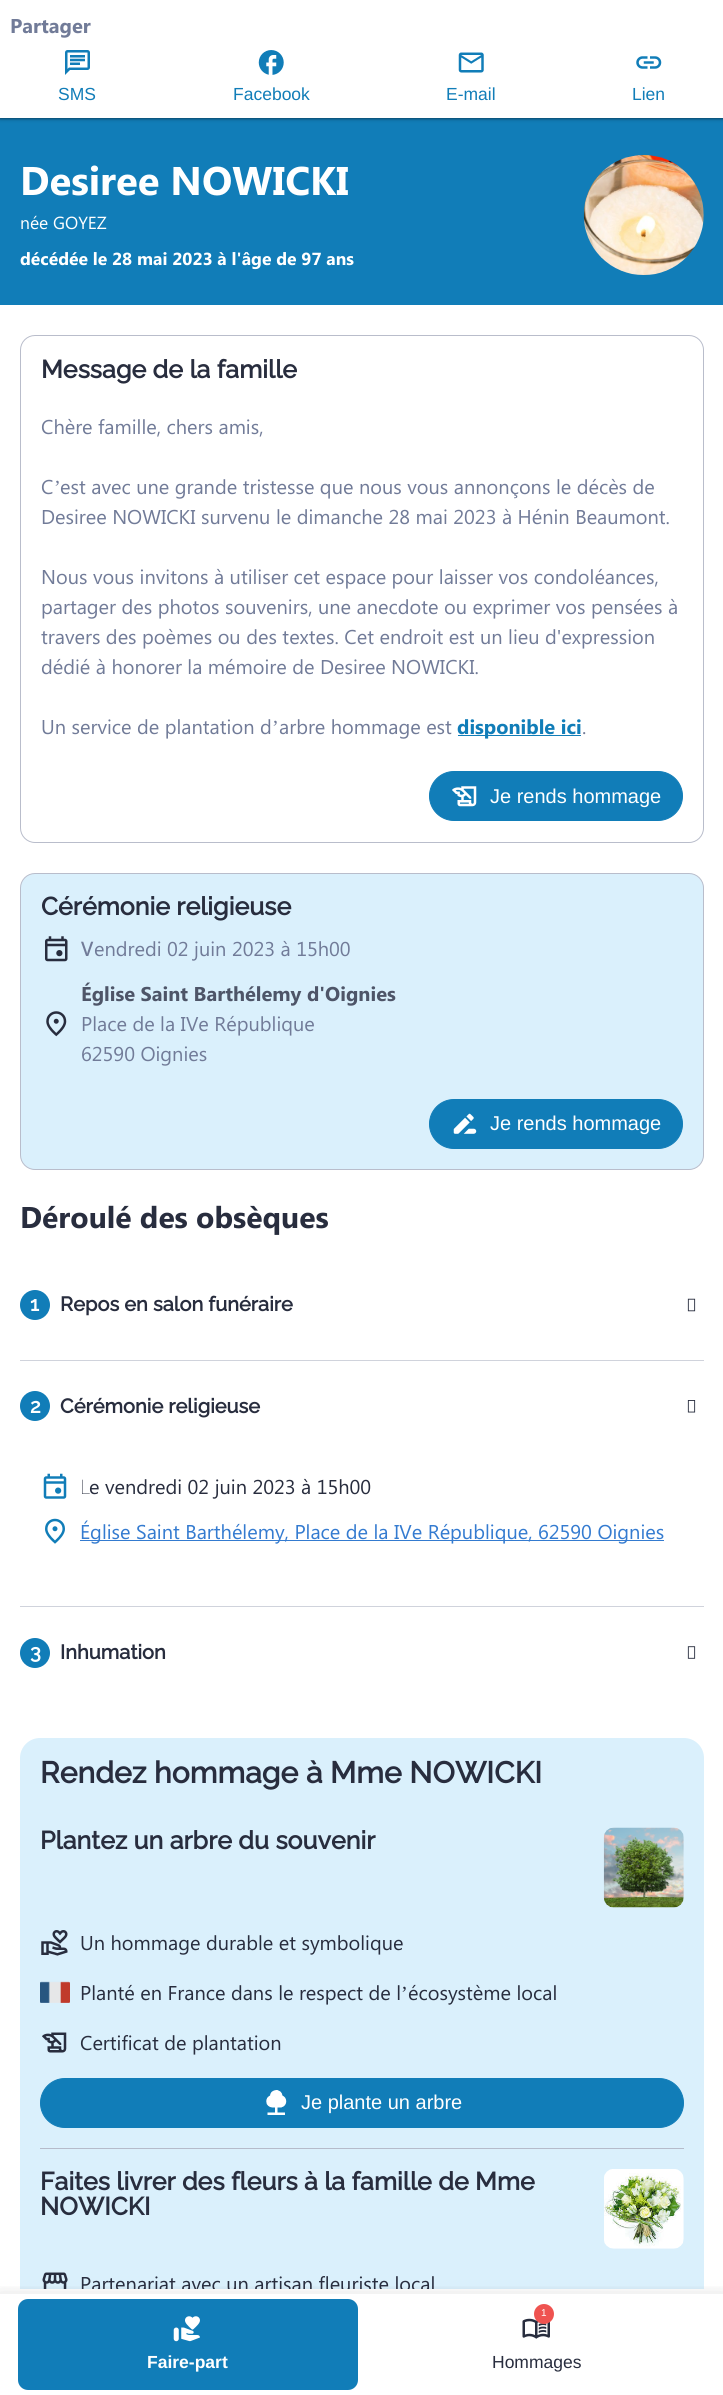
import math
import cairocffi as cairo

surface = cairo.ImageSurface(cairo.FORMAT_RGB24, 723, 2395)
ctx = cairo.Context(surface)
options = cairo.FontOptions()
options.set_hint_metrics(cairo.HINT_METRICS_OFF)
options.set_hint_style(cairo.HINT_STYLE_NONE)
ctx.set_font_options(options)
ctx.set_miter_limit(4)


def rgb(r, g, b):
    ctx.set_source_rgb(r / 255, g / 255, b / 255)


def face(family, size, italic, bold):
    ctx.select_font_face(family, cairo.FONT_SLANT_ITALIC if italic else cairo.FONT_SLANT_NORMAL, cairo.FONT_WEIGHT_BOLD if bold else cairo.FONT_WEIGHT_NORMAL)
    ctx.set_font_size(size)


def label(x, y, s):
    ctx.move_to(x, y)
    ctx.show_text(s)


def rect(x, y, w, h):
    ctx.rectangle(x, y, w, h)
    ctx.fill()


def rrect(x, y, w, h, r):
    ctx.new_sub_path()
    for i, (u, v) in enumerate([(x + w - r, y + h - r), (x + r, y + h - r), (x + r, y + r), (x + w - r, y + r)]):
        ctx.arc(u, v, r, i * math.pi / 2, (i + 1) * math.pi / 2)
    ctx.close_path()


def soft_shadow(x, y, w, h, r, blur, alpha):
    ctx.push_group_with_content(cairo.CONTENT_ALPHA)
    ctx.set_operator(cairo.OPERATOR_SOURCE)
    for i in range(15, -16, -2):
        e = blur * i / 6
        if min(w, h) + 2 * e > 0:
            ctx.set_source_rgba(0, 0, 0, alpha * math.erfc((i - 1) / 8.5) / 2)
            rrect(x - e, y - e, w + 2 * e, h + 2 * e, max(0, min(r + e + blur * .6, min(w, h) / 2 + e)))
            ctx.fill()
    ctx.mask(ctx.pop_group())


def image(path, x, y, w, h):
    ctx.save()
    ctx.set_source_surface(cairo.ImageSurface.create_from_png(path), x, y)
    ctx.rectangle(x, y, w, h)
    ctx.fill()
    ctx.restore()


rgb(255, 255, 255)
ctx.paint()
rgb(17, 125, 184)
rect(0, 118, 723, 187)
rgb(0, 0, 0)
soft_shadow(-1, 0, 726, 120, 0, 2, 0.15)
soft_shadow(0, 1, 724, 118, 0, 1, 0.3)
rgb(255, 255, 255)
rect(0, 0, 723, 118)
face('Segoe UI', 20, 0, 1)
rgb(113, 123, 152)
label(10, 33, 'Partager')
image('image0.png', 65, 50, 25, 25)
face('Liberation Sans', 17.5, 0, 0)
rgb(17, 125, 184)
label(58, 100, 'SMS')
image('image1.png', 258, 50, 26, 25)
label(233, 100, 'Facebook')
image('image2.png', 458, 52, 26, 21)
label(446, 100, 'E-mail')
image('image3.png', 636, 56, 26, 13)
label(632, 100, 'Lien')
face('Segoe UI', 40, 0, 1)
rgb(255, 255, 255)
label(20, 195, 'Desiree NOWICKI')
face('Segoe UI', 17.5, 0, 0)
label(20, 229, 'née GOYEZ')
face('Segoe UI', 17.5, 0, 1)
label(20, 265, 'décédée le 28 mai 2023 à l\'âge de 97 ans')
image('image4.png', 583, 155, 121, 120)
rrect(20.5, 335.5, 683, 507, 14.5)
rgb(185, 189, 203)
ctx.set_line_width(1)
ctx.stroke()
face('Raleway', 25, 0, 1)
rgb(40, 45, 62)
label(41, 378, 'Message de la famille')
face('Segoe UI', 20, 0, 0)
rgb(113, 123, 152)
label(41, 434, 'Chère famille, chers amis,')
label(41, 494, 'C')
face('Liberation Serif', 20, 0, 0)
label(54, 494, '’')
face('Segoe UI', 20, 0, 0)
label(60, 494, 'est avec une grande tristesse que nous vous annonçons le décès de')
label(41, 524, 'Desiree NOWICKI survenu le dimanche 28 mai 2023 à Hénin Beaumont.')
label(41, 584, 'Nous vous invitons à utiliser cet espace pour laisser vos condoléances,')
label(41, 614, 'partager des photos souvenirs, une anecdote ou exprimer vos pensées à')
label(41, 644, 'travers des poèmes ou des textes. Cet endroit est un lieu d\'expression')
label(41, 674, 'dédié à honorer la mémoire de Desiree NOWICKI.')
label(41, 734, 'Un service de plantation d')
face('Liberation Serif', 20, 0, 0)
label(272, 734, '’')
face('Segoe UI', 20, 0, 0)
label(279, 734, 'arbre hommage est')
rgb(17, 125, 184)
rect(458, 735, 123, 1)
face('Segoe UI', 20, 0, 1)
label(457, 734, 'disponible ici')
face('Segoe UI', 20, 0, 0)
rgb(113, 123, 152)
label(582, 734, '.')
rgb(17, 125, 184)
rrect(429.5, 771.5, 253, 49, 24.5)
ctx.fill_preserve()
ctx.stroke()
image('image5.png', 452, 786, 25, 21)
face('Liberation Sans', 20, 0, 0)
rgb(255, 255, 255)
label(490, 803, 'Je rends hommage')
rgb(218, 240, 252)
rrect(20.5, 873.5, 683, 296, 14.5)
ctx.fill_preserve()
rgb(185, 189, 203)
ctx.stroke()
face('Raleway', 25, 0, 1)
rgb(40, 45, 62)
label(41, 915, 'Cérémonie religieuse')
image('image6.png', 45, 936, 23, 26)
face('Noto Sans Medium', 20, 0, 0)
rgb(113, 123, 152)
label(81, 956, 'V')
face('Segoe UI', 20, 0, 0)
label(94, 956, 'endredi 02 juin 2023 à 15h00')
image('image7.png', 46, 1011, 21, 26)
face('Segoe UI', 20, 0, 1)
rgb(78, 85, 104)
label(81, 1001, 'Église Saint Barthélemy d\'Oignies')
face('Segoe UI', 20, 0, 0)
rgb(113, 123, 152)
label(81, 1031, 'Place de la IVe République')
label(81, 1061, '62590 Oignies')
rgb(17, 125, 184)
rrect(429.5, 1099.5, 253, 49, 24.5)
ctx.fill_preserve()
ctx.stroke()
image('image8.png', 453, 1113, 24, 21)
face('Liberation Sans', 20, 0, 0)
rgb(255, 255, 255)
label(490, 1130, 'Je rends hommage')
face('Segoe UI', 30, 0, 1)
rgb(40, 45, 62)
label(20, 1228, 'Déroulé des obsèques')
rgb(17, 125, 184)
ctx.new_path()
ctx.arc(35, 1305, 15, 0, 2 * math.pi)
ctx.fill()
face('Raleway', 20, 0, 1)
rgb(255, 255, 255)
label(30, 1311, '1')
rgb(40, 45, 62)
label(60, 1311, 'Repos en salon funéraire')
image('image9.png', 687, 1298, 9, 14)
rgb(208, 211, 220)
rect(20, 1360, 684, 1)
rgb(17, 125, 184)
ctx.arc(35, 1406, 15, 0, 2 * math.pi)
ctx.fill()
rgb(255, 255, 255)
label(30, 1413, '2')
rgb(40, 45, 62)
label(60, 1413, 'Cérémonie religieuse')
image('image10.png', 687, 1400, 9, 13)
image('image11.png', 43, 1473, 24, 26)
face('Noto Sans Thin', 20, 0, 0)
label(80, 1494, 'L')
face('Segoe UI', 20, 0, 0)
label(89, 1494, 'e vendredi 02 juin 2023 à 15h00')
image('image12.png', 45, 1518, 20, 26)
rgb(52, 123, 208)
rect(80, 1540, 584, 1)
label(80, 1539, 'Église Saint Barthélemy, Place de la IVe République, 62590 Oignies')
rgb(208, 211, 220)
rect(20, 1606, 684, 1)
rgb(17, 125, 184)
ctx.new_path()
ctx.arc(35, 1653, 15, 0, 2 * math.pi)
ctx.fill()
face('Raleway', 20, 0, 1)
rgb(255, 255, 255)
label(30, 1659, '3')
rgb(40, 45, 62)
label(60, 1659, 'Inhumation')
image('image13.png', 687, 1646, 9, 13)
rgb(218, 240, 252)
ctx.new_path()
ctx.move_to(40, 1738)
ctx.line_to(684, 1738)
ctx.curve_to(695, 1738, 704, 1747, 704, 1758)
ctx.line_to(704, 2289)
ctx.line_to(20, 2289)
ctx.line_to(20, 1758)
ctx.curve_to(20, 1747, 29, 1738, 40, 1738)
ctx.close_path()
ctx.fill()
face('Raleway', 30, 0, 1)
rgb(40, 45, 62)
label(40, 1783, 'Rendez hommage à Mme NOWICKI')
rgb(182, 187, 202)
rect(40, 2148, 644, 1)
face('Raleway', 25, 0, 1)
rgb(40, 45, 62)
label(40, 1849, 'Plantez un arbre du souvenir')
image('image14.png', 603, 1827, 81, 81)
image('image15.png', 41, 1930, 27, 26)
face('Segoe UI', 20, 0, 0)
label(80, 1950, 'Un hommage durable et symbolique')
image('image16.png', 40, 1981, 30, 22)
label(80, 2000, 'Planté en France dans le respect de l')
face('Liberation Serif', 20, 0, 0)
label(401, 2000, '’')
face('Segoe UI', 20, 0, 0)
label(408, 2000, 'écosystème local')
image('image17.png', 42, 2032, 25, 21)
label(80, 2050, 'Certificat de plantation')
rgb(17, 125, 184)
rrect(40.5, 2078.5, 643, 49, 24.5)
ctx.fill_preserve()
ctx.stroke()
image('image18.png', 266, 2090, 21, 25)
face('Liberation Sans', 20, 0, 0)
rgb(255, 255, 255)
label(301, 2109, 'Je plante un arbre')
face('Raleway', 25, 0, 1)
rgb(40, 45, 62)
label(40, 2190, 'Faites livrer des fleurs à la famille de Mme')
label(40, 2215, 'NOWICKI')
image('image19.png', 604, 2169, 80, 80)
image('image20.png', 42, 2272, 26, 17)
ctx.save()
ctx.rectangle(0, 0, 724, 2289)
ctx.clip()
face('Segoe UI', 20, 0, 0)
label(80, 2291, 'Partenariat avec un artisan fleuriste local')
ctx.restore()
ctx.save()
ctx.rectangle(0, 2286, 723, 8)
ctx.clip()
rgb(0, 0, 0)
soft_shadow(0, 2299, 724, 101, 0, 10, 0.2)
ctx.restore()
rgb(17, 125, 184)
rrect(18, 2299, 340, 91, 10)
ctx.fill()
image('image21.png', 173, 2316, 27, 26)
face('Liberation Sans', 17.5, 0, 1)
rgb(255, 255, 255)
label(147, 2368, 'Faire-part')
image('image22.png', 522, 2318, 28, 21)
rgb(239, 83, 80)
ctx.arc(544, 2314, 10, 0, 2 * math.pi)
ctx.fill()
face('Liberation Sans', 10, 0, 0)
rgb(255, 255, 255)
label(541, 2316, '1')
face('Liberation Sans', 17.5, 0, 0)
rgb(40, 45, 62)
label(492, 2368, 'Hommages')
surface.write_to_png('render.png')
